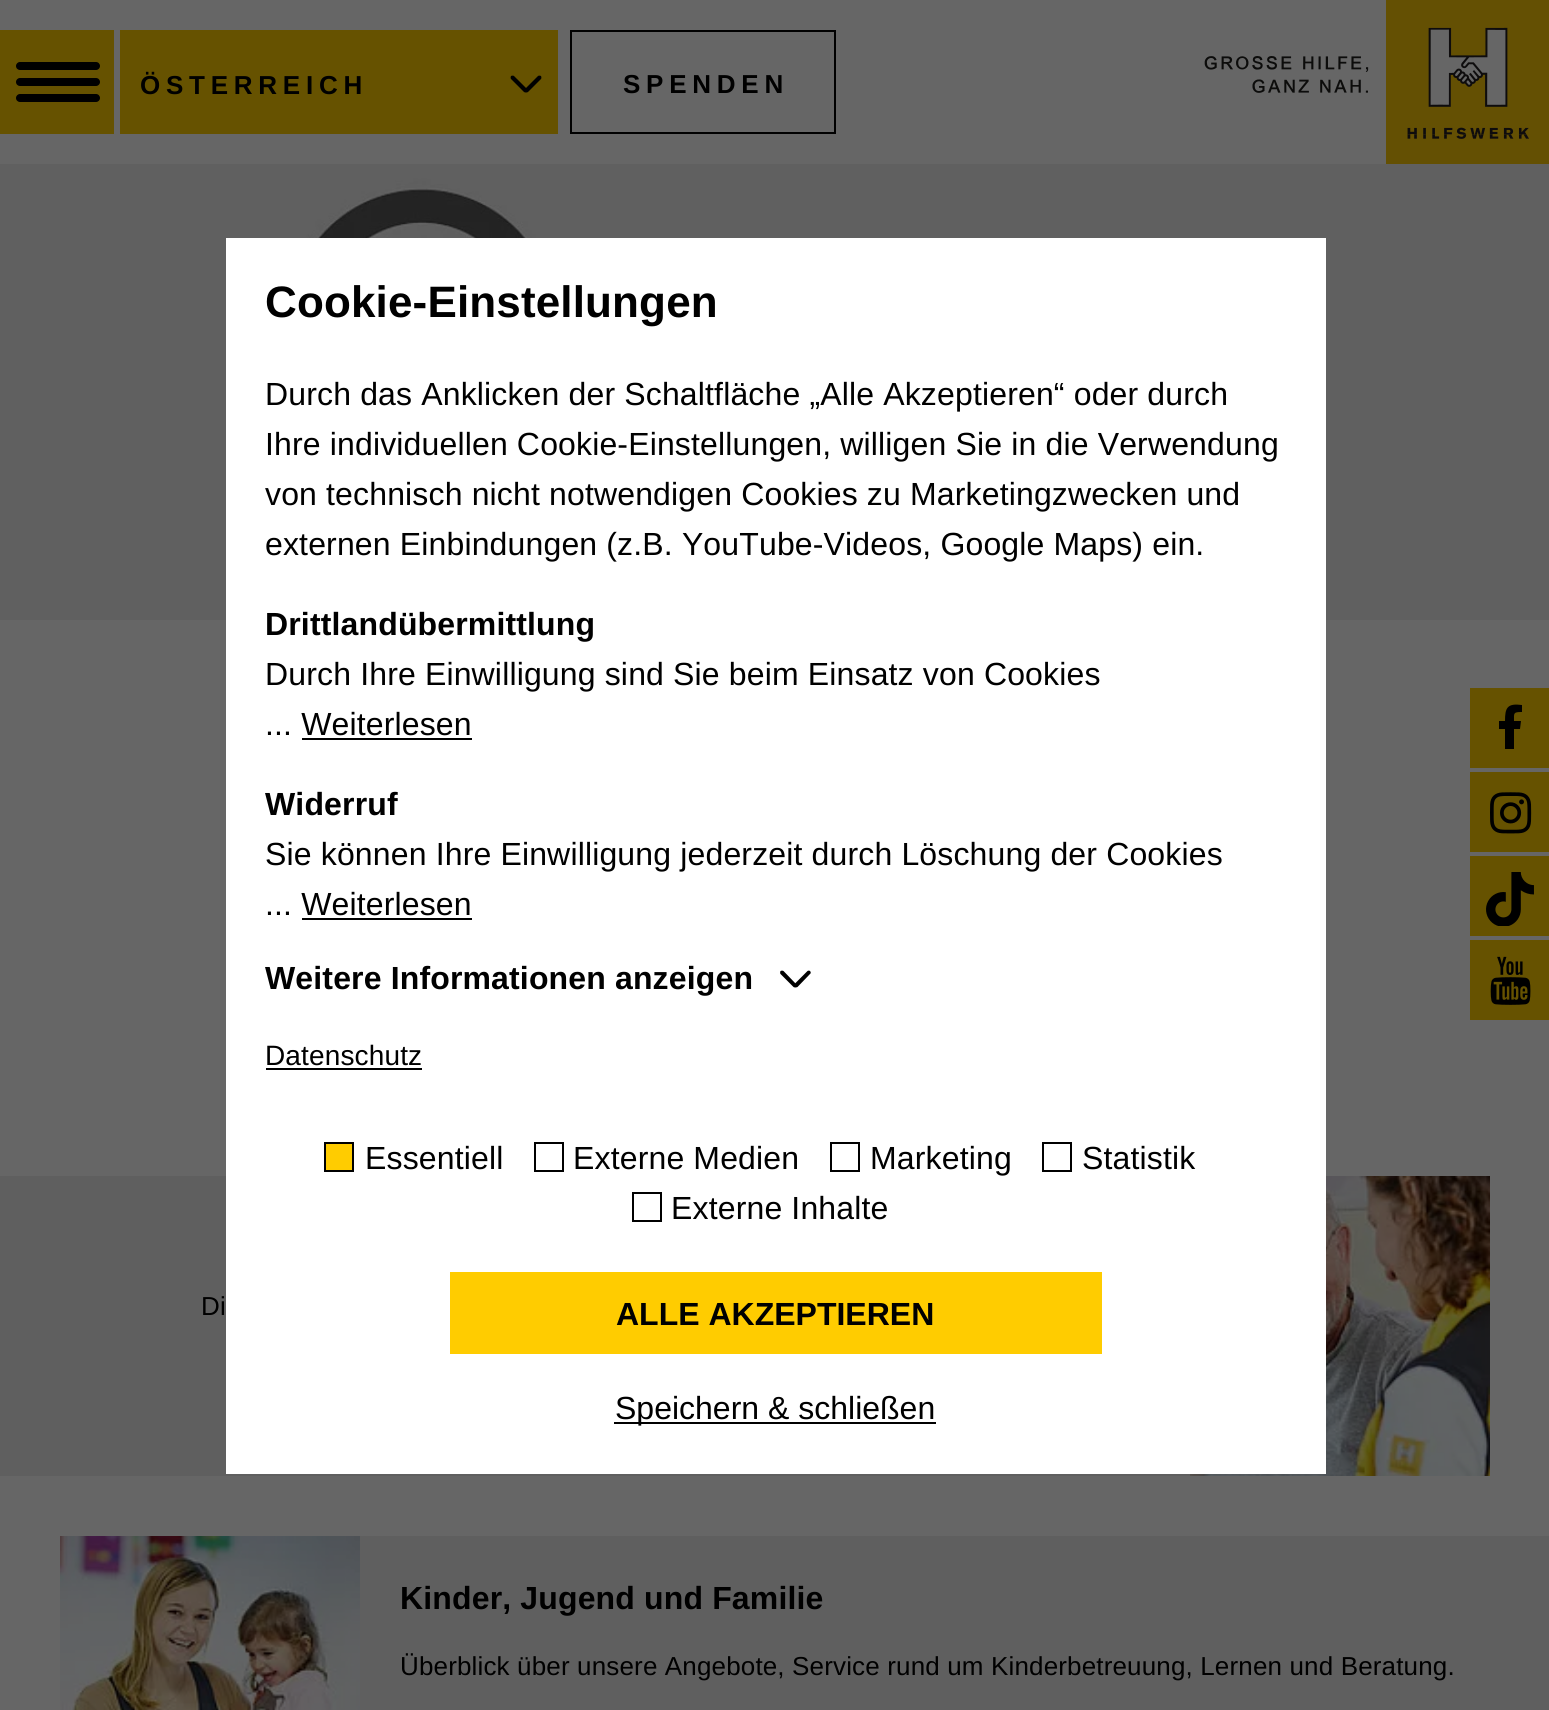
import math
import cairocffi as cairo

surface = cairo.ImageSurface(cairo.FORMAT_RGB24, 1549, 1710)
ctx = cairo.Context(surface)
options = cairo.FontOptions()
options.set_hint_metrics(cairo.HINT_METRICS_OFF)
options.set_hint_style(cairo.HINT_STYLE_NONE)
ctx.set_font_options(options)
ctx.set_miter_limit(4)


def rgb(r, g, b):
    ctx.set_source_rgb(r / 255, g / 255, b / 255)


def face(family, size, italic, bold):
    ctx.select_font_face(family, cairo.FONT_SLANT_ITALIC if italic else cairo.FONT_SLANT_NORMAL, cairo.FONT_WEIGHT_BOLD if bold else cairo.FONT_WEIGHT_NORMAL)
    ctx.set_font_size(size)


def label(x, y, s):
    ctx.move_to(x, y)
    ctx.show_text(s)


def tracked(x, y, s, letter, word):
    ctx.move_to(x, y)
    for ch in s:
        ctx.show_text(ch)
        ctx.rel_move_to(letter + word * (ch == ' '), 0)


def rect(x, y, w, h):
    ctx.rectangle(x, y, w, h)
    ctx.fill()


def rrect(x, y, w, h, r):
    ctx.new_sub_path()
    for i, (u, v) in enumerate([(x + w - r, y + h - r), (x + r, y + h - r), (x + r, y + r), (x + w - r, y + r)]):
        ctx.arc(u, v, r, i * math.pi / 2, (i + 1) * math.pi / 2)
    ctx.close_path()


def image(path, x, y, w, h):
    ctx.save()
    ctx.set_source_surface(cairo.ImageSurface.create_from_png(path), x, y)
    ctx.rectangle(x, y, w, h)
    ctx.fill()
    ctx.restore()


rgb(102, 102, 102)
ctx.paint()
rgb(102, 82, 0)
rect(0, 30, 114, 104)
rgb(0, 0, 0)
rrect(16, 62, 84, 8, 4)
ctx.fill()
rrect(16, 78, 84, 8, 4)
ctx.fill()
rrect(16, 94, 84, 8, 4)
ctx.fill()
rgb(102, 82, 0)
rect(120, 30, 438, 104)
face('Liberation Sans', 26, 0, 1)
rgb(0, 0, 0)
tracked(140, 94, 'ÖSTERREICH', 5.75, 0)
ctx.new_path()
ctx.move_to(514, 76)
ctx.line_to(527, 89)
ctx.curve_to(527.5, 89.5, 527.5, 91, 527, 92)
ctx.curve_to(526, 92.5, 524.5, 92.5, 524, 92)
ctx.line_to(511, 79)
ctx.curve_to(510.5, 78.5, 510.5, 77, 511, 76)
ctx.curve_to(512, 75.5, 513.5, 75.5, 514, 76)
ctx.close_path()
ctx.fill()
ctx.new_path()
ctx.move_to(525, 89)
ctx.line_to(538, 76)
ctx.curve_to(538.5, 75.5, 540, 75.5, 541, 76)
ctx.curve_to(541.5, 77, 541.5, 78.5, 541, 79)
ctx.line_to(528, 92)
ctx.curve_to(527.5, 92.5, 526, 92.5, 525, 92)
ctx.curve_to(524.5, 91, 524.5, 89.5, 525, 89)
ctx.close_path()
ctx.fill()
ctx.rectangle(571, 31, 264, 102)
ctx.stroke()
tracked(623, 93, 'SPENDEN', 5.75, 0)
image('image0.png', 1204, 56, 165, 37)
image('image1.png', 1386, 0, 163, 164)
rgb(102, 82, 0)
rect(1470, 688, 79, 80)
rgb(0, 0, 0)
ctx.new_path()
ctx.move_to(1522, 705)
ctx.line_to(1522, 712)
ctx.curve_to(1513, 712, 1514, 713, 1514, 721)
ctx.line_to(1521, 721)
ctx.line_to(1520, 729)
ctx.line_to(1514, 729)
ctx.line_to(1514, 749)
ctx.line_to(1505, 749)
ctx.line_to(1505, 729)
ctx.line_to(1499, 729)
ctx.line_to(1499, 721)
ctx.line_to(1505, 721)
ctx.curve_to(1505, 708, 1507, 703, 1522, 705)
ctx.close_path()
ctx.fill()
rgb(102, 82, 0)
rect(1470, 772, 79, 80)
image('image2.png', 1490, 792, 42, 42)
rect(1470, 856, 79, 80)
image('image3.png', 1486, 872, 48, 54)
rect(1470, 940, 79, 80)
image('image4.png', 1490, 956, 41, 49)
image('image5.png', 0, 164, 1549, 456)
rgb(95, 95, 95)
rect(0, 1176, 1190, 300)
face('Liberation Sans', 26, 0, 0)
rgb(0, 0, 0)
tracked(201, 1315, 'Di', 0.15, 0)
image('image6.png', 1190, 1176, 300, 300)
rgb(95, 95, 95)
rect(360, 1536, 1189, 174)
image('image7.png', 60, 1536, 300, 174)
face('Liberation Sans', 32, 0, 1)
rgb(0, 0, 0)
tracked(400, 1609, 'Kinder, Jugend und Familie', 0.15, 0)
face('Liberation Sans', 26, 0, 0)
tracked(400, 1675, 'Überblick über unsere Angebote, Service rund um Kinderbetreuung, Lernen und Beratung.', 0.15, 0)
rgb(255, 255, 255)
rect(226, 238, 1100, 1236)
face('Liberation Sans', 44, 0, 1)
rgb(0, 0, 0)
tracked(265, 317, 'Cookie-Einstellungen', 0.15, 0)
face('Liberation Sans', 32, 0, 0)
tracked(265, 405, 'Durch das Anklicken der Schaltfläche „Alle Akzeptieren“ oder durch', 0.15, 0)
tracked(265, 455, 'Ihre individuellen Cookie-Einstellungen, willigen Sie in die Verwendung', 0.15, 0)
tracked(265, 505, 'von technisch nicht notwendigen Cookies zu Marketingzwecken und', 0.15, 0)
tracked(265, 555, 'externen Einbindungen (z.B. YouTube-Videos, Google Maps) ein.', 0.15, 0)
face('Liberation Sans', 32, 0, 1)
tracked(265, 635, 'Drittlandübermittlung', 0.15, 0)
face('Liberation Sans', 32, 0, 0)
tracked(265, 685, 'Durch Ihre Einwilligung sind Sie beim Einsatz von Cookies', 0.15, 0)
tracked(265, 735, '... Weiterlesen', 0.15, 0)
rect(302, 738, 170, 2)
face('Liberation Sans', 32, 0, 1)
tracked(265, 815, 'Widerruf', 0.15, 0)
face('Liberation Sans', 32, 0, 0)
tracked(265, 865, 'Sie können Ihre Einwilligung jederzeit durch Löschung der Cookies', 0.15, 0)
tracked(265, 915, '... Weiterlesen', 0.15, 0)
rect(302, 918, 170, 2)
face('Liberation Sans', 32, 0, 1)
tracked(265, 989, 'Weitere Informationen anzeigen', 0.15, 0)
ctx.new_path()
ctx.move_to(783.5, 971)
ctx.line_to(796, 984)
ctx.curve_to(797, 984.5, 797, 986, 796, 987)
ctx.curve_to(795.5, 987.5, 794, 987.5, 793.5, 987)
ctx.line_to(780.5, 974)
ctx.curve_to(780, 973.5, 780, 972, 780.5, 971)
ctx.curve_to(781.5, 970.5, 782.5, 970.5, 783.5, 971)
ctx.close_path()
ctx.fill()
ctx.new_path()
ctx.move_to(794.5, 984)
ctx.line_to(807.5, 971)
ctx.curve_to(808, 970.5, 809.5, 970.5, 810, 971)
ctx.curve_to(811, 972, 811, 973.5, 810, 974)
ctx.line_to(797.5, 987)
ctx.curve_to(796.5, 987.5, 795.5, 987.5, 794.5, 987)
ctx.curve_to(794, 986, 794, 984.5, 794.5, 984)
ctx.close_path()
ctx.fill()
face('Liberation Sans', 28, 0, 0)
tracked(265, 1065, 'Datenschutz', 0.15, 0)
rect(266, 1068, 156, 2)
rgb(255, 204, 0)
ctx.rectangle(325, 1143, 28, 28)
ctx.fill_preserve()
rgb(0, 0, 0)
ctx.stroke()
face('Liberation Sans', 32, 0, 0)
tracked(365, 1169, 'Essentiell', 0.15, 0)
ctx.rectangle(535, 1143, 28, 28)
ctx.stroke()
tracked(573, 1169, 'Externe Medien', 0.15, 0)
ctx.rectangle(831, 1143, 28, 28)
ctx.stroke()
tracked(870, 1169, 'Marketing', 0.15, 0)
ctx.rectangle(1043, 1143, 28, 28)
ctx.stroke()
tracked(1082, 1169, 'Statistik', 0.15, 0)
ctx.rectangle(633, 1193, 28, 28)
ctx.stroke()
tracked(671, 1219, 'Externe Inhalte', 0.15, 0)
rgb(255, 204, 0)
rect(450, 1272, 652, 82)
face('Liberation Sans', 32, 0, 1)
rgb(0, 0, 0)
label(616, 1325, 'ALLE AKZEPTIEREN')
rect(614, 1422, 322, 2)
face('Liberation Sans', 32, 0, 0)
label(615, 1419, 'Speichern & schließen')
surface.write_to_png('render.png')
